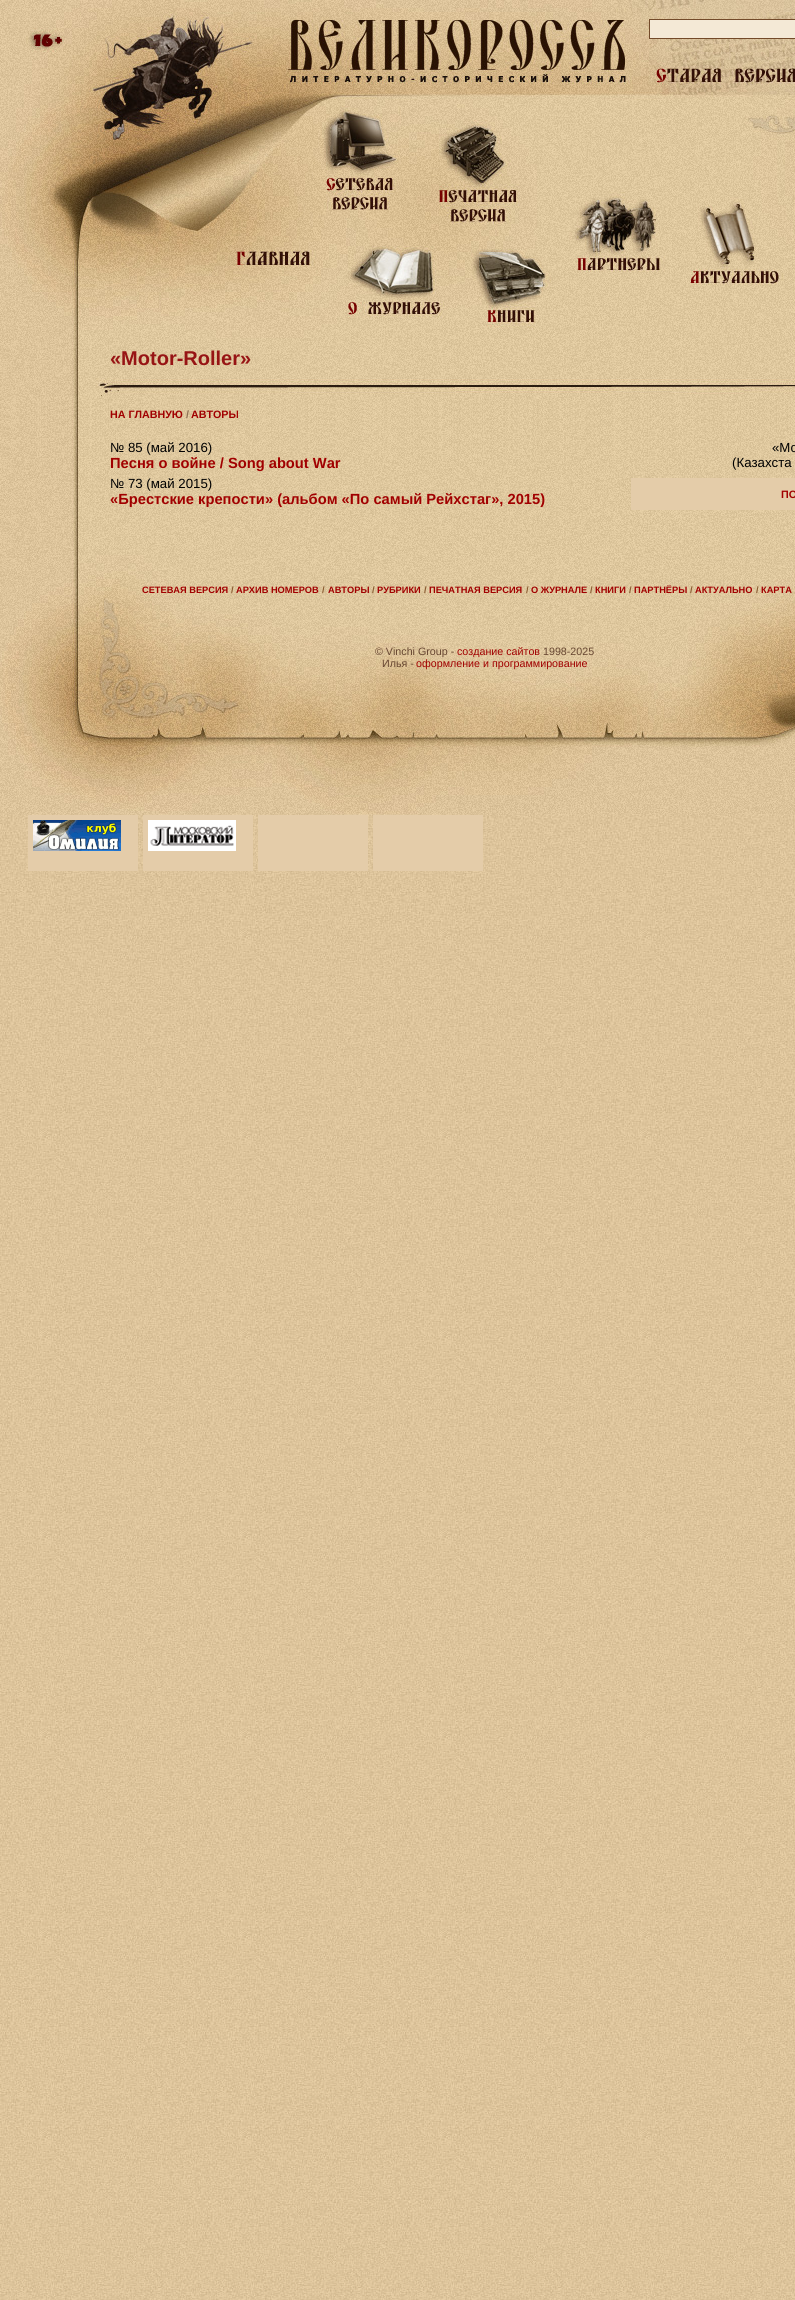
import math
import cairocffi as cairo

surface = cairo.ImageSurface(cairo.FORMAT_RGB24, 795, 2300)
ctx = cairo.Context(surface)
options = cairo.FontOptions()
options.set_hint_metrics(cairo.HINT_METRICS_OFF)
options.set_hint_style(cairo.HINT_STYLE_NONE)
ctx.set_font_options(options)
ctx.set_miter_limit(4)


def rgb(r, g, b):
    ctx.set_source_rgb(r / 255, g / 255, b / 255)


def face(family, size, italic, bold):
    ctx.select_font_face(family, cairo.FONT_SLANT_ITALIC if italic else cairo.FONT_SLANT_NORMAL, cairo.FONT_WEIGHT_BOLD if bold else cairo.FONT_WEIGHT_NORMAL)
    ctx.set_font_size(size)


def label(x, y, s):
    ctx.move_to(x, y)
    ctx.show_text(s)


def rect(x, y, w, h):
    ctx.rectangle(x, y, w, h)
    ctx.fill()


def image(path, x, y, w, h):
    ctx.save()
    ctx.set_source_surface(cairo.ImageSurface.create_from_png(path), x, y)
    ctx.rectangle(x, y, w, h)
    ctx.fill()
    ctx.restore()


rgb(255, 255, 255)
ctx.paint()
image('image0.png', 0, 814, 795, 1486)
image('image1.png', 0, 0, 795, 12)
image('image2.png', 0, 12, 81, 318)
image('image3.png', 81, 12, 714, 318)
image('image4.png', 82, 12, 180, 139)
image('image5.png', 281, 20, 352, 68)
rgb(244, 233, 214)
ctx.rectangle(649.5, 19.5, 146, 19)
ctx.fill_preserve()
rgb(115, 74, 41)
ctx.set_line_width(1)
ctx.stroke()
image('image6.png', 649, 61, 146, 27)
image('image7.png', 318, 106, 82, 112)
image('image8.png', 431, 120, 94, 110)
image('image9.png', 569, 192, 99, 86)
image('image10.png', 682, 197, 105, 94)
image('image11.png', 228, 242, 90, 32)
image('image12.png', 340, 230, 108, 92)
image('image13.png', 471, 241, 80, 89)
image('image14.png', 0, 330, 795, 12)
image('image15.png', 0, 342, 795, 28)
face('Liberation Sans', 20, 0, 1)
rgb(151, 20, 20)
label(110, 365, '«Motor-Roller»')
image('image16.png', 0, 370, 795, 30)
image('image17.png', 0, 400, 795, 8)
image('image18.png', 0, 408, 795, 12)
face('Liberation Sans', 10.7, 0, 1)
rgb(161, 0, 0)
label(110, 418, 'НА ГЛАВНУЮ')
rgb(142, 113, 84)
label(186, 418, '/')
rgb(161, 0, 0)
label(191, 418, 'АВТОРЫ')
image('image19.png', 0, 420, 795, 20)
image('image20.png', 0, 440, 795, 75)
face('Liberation Sans', 13.25, 0, 0)
rgb(0, 0, 0)
label(110, 452, '№ 85 (май 2016)')
face('Liberation Sans', 14.7, 0, 1)
rgb(161, 0, 0)
label(110, 468, 'Песня о войне / Song about War')
face('Liberation Sans', 13.25, 0, 0)
rgb(0, 0, 0)
label(110, 488, '№ 73 (май 2015)')
face('Liberation Sans', 14.7, 0, 1)
rgb(161, 0, 0)
label(110, 504, '«Брестские крепости» (альбом «По самый Рейхстаг», 2015)')
face('Liberation Sans', 13.25, 0, 0)
rgb(0, 0, 0)
label(772, 452, '«Mo')
label(732, 467, '(Казахста')
rgb(228, 204, 169)
rect(631, 478, 164, 32)
face('Liberation Sans', 10.7, 0, 1)
rgb(161, 0, 0)
label(781, 498, 'ПО')
image('image21.png', 0, 515, 795, 40)
image('image22.png', 0, 555, 795, 259)
face('Liberation Sans', 9.25, 0, 1)
label(142, 593, 'СЕТЕВАЯ ВЕРСИЯ')
rgb(136, 89, 47)
label(231, 593, '/')
rgb(161, 0, 0)
label(236, 593, 'АРХИВ НОМЕРОВ')
rgb(136, 89, 47)
label(322, 593, '/')
rgb(161, 0, 0)
label(328, 593, 'АВТОРЫ')
rgb(136, 89, 47)
label(372, 593, '/')
rgb(161, 0, 0)
label(377, 593, 'РУБРИКИ')
rgb(136, 89, 47)
label(424, 593, '/')
rgb(161, 0, 0)
label(429, 593, 'ПЕЧАТНАЯ ВЕРСИЯ')
rgb(136, 89, 47)
label(526, 593, '/')
rgb(161, 0, 0)
label(531, 593, 'О ЖУРНАЛЕ')
rgb(136, 89, 47)
label(590, 593, '/')
rgb(161, 0, 0)
label(595, 593, 'КНИГИ')
rgb(136, 89, 47)
label(629, 593, '/')
rgb(161, 0, 0)
label(634, 593, 'ПАРТНЁРЫ')
rgb(136, 89, 47)
label(690, 593, '/')
rgb(161, 0, 0)
label(695, 593, 'АКТУАЛЬНО')
rgb(136, 89, 47)
label(756, 593, '/')
rgb(161, 0, 0)
label(761, 593, 'КАРТА')
face('Liberation Sans', 10.7, 0, 0)
rgb(103, 70, 49)
label(375, 655, '© Vinchi Group -')
rgb(161, 0, 0)
label(457, 655, 'создание сайтов')
rgb(103, 70, 49)
label(543, 655, '1998-2025')
label(382, 667, 'Илья -')
rgb(161, 0, 0)
label(416, 667, 'оформление и программирование')
rgb(228, 204, 169)
rect(28, 815, 110, 56)
image('image23.png', 33, 820, 88, 31)
rect(143, 815, 110, 56)
image('image24.png', 148, 820, 88, 31)
rect(258, 815, 110, 56)
rect(373, 815, 110, 56)
surface.write_to_png('render.png')
